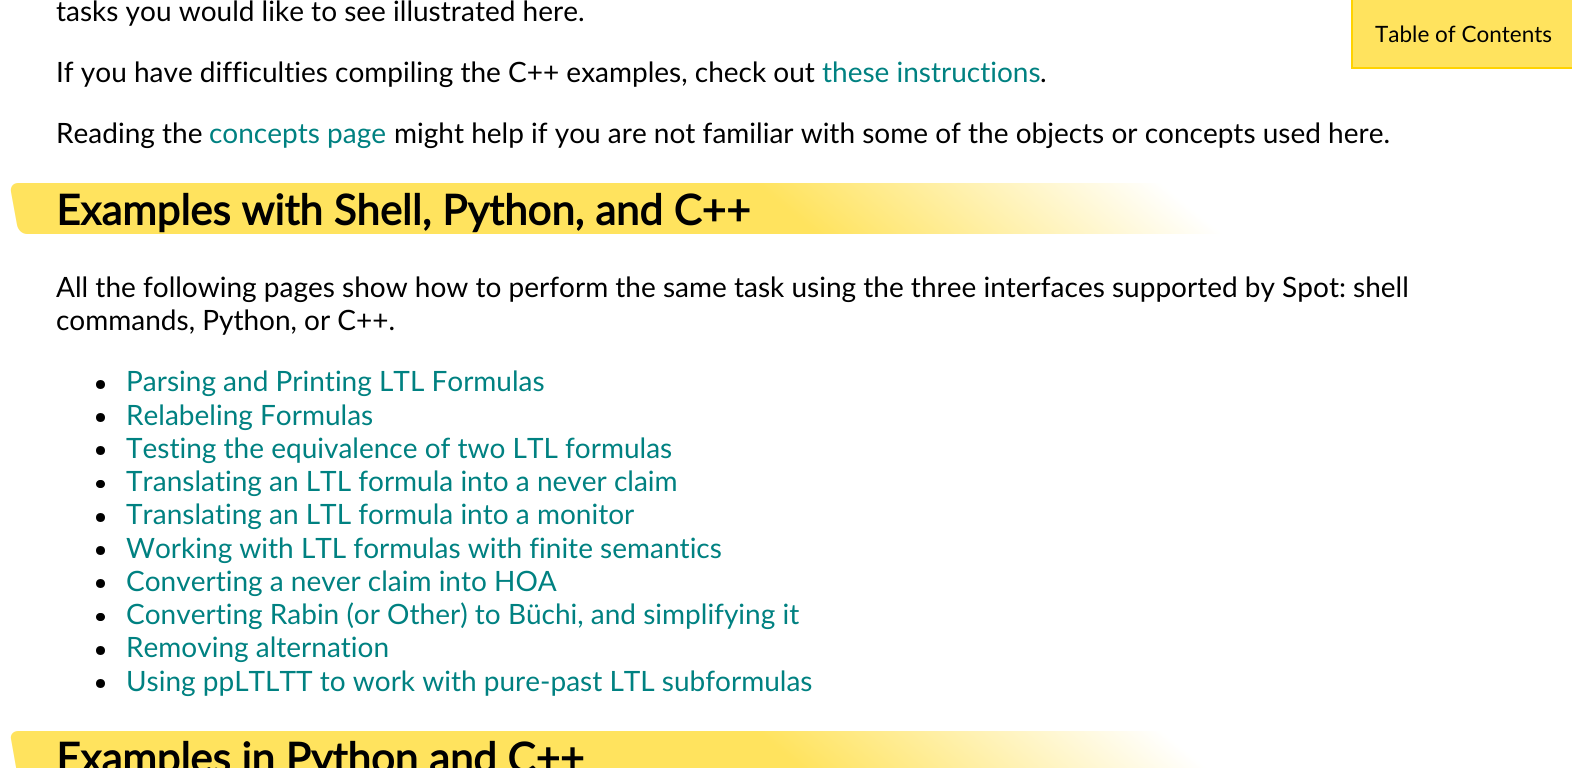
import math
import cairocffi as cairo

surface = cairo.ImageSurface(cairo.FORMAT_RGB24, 1572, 768)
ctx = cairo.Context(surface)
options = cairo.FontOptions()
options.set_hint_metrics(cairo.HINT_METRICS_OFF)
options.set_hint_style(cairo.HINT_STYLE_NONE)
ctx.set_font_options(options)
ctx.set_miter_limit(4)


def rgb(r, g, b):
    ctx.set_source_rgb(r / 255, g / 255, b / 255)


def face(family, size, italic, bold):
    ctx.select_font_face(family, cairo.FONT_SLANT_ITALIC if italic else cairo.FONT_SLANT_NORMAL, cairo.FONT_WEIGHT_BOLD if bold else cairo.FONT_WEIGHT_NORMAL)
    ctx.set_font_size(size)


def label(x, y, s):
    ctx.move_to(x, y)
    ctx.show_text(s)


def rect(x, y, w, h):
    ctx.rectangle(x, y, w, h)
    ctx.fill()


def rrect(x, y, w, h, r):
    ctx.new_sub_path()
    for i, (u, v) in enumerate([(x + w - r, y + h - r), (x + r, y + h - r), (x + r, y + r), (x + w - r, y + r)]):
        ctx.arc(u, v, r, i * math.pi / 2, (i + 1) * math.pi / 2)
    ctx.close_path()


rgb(255, 255, 255)
ctx.paint()
face('Lato', 28, 0, 0)
rgb(0, 0, 0)
label(56, 21, 'tasks you would like to see illustrated here.')
rgb(255, 227, 94)
rect(1353, 0, 219, 67)
rgb(255, 211, 0)
rect(1351, 67, 221, 2)
rect(1351, 0, 2, 68)
face('Lato', 22.5, 0, 0)
rgb(0, 0, 0)
label(1375, 42, 'Table of Contents')
face('Lato', 28, 0, 0)
label(56, 82, 'If you have difficulties compiling the C++ examples, check out')
rgb(0, 129, 129)
label(822, 82, 'these instructions')
rgb(0, 0, 0)
label(1040, 82, '.')
label(56, 143, 'Reading the')
rgb(0, 129, 129)
label(209, 143, 'concepts page')
rgb(0, 0, 0)
label(394, 143, 'might help if you are not familiar with some of the objects or concepts used here.')
gradient = cairo.LinearGradient(458, 608, 1115, -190)
gradient.add_color_stop_rgba(0.5, 1, 0.89, 0.369, 1)
gradient.add_color_stop_rgba(0.75, 1, 1, 1, 1)
ctx.set_source(gradient)
ctx.new_path()
ctx.move_to(18, 183)
ctx.line_to(1546, 183)
ctx.curve_to(1551, 183, 1556, 187, 1556, 192)
ctx.line_to(1562, 225)
ctx.curve_to(1563, 230, 1560, 234, 1555, 234)
ctx.line_to(27, 234)
ctx.curve_to(22, 234, 18, 230, 17, 225)
ctx.line_to(11, 192)
ctx.curve_to(10, 187, 13, 183, 18, 183)
ctx.close_path()
ctx.fill()
face('Lato', 42, 0, 1)
rgb(0, 0, 0)
label(56, 225, 'Examples with Shell, Python, and C++')
face('Lato', 28, 0, 0)
label(56, 297, 'All the following pages show how to perform the same task using the three interfaces supported by Spot: shell')
label(56, 330, 'commands, Python, or C++.')
ctx.new_path()
ctx.arc(100.5, 384.5, 4.5, 0, 2 * math.pi)
ctx.fill()
rgb(0, 129, 129)
label(126, 391, 'Parsing and Printing LTL Formulas')
rgb(0, 0, 0)
ctx.new_path()
ctx.arc(100.5, 417.5, 4.5, 0, 2 * math.pi)
ctx.fill()
rgb(0, 129, 129)
label(126, 425, 'Relabeling Formulas')
rgb(0, 0, 0)
ctx.new_path()
ctx.arc(100.5, 450.5, 4.5, 0, 2 * math.pi)
ctx.fill()
rgb(0, 129, 129)
label(126, 458, 'Testing the equivalence of two LTL formulas')
rgb(0, 0, 0)
rrect(96, 480, 9, 8, 4)
ctx.fill()
rgb(0, 129, 129)
label(126, 491, 'Translating an LTL formula into a never claim')
rgb(0, 0, 0)
ctx.new_path()
ctx.arc(100.5, 517.5, 4.5, 0, 2 * math.pi)
ctx.fill()
rgb(0, 129, 129)
label(126, 524, 'Translating an LTL formula into a monitor')
rgb(0, 0, 0)
ctx.new_path()
ctx.arc(100.5, 550.5, 4.5, 0, 2 * math.pi)
ctx.fill()
rgb(0, 129, 129)
label(126, 558, 'Working with LTL formulas with finite semantics')
rgb(0, 0, 0)
ctx.new_path()
ctx.arc(100.5, 583.5, 4.5, 0, 2 * math.pi)
ctx.fill()
rgb(0, 129, 129)
label(126, 591, 'Converting a never claim into HOA')
rgb(0, 0, 0)
rrect(96, 613, 9, 8, 4)
ctx.fill()
rgb(0, 129, 129)
label(126, 624, 'Converting Rabin (or Other) to Büchi, and simplifying it')
rgb(0, 0, 0)
ctx.new_path()
ctx.arc(100.5, 650.5, 4.5, 0, 2 * math.pi)
ctx.fill()
rgb(0, 129, 129)
label(126, 657, 'Removing alternation')
rgb(0, 0, 0)
ctx.new_path()
ctx.arc(100.5, 683.5, 4.5, 0, 2 * math.pi)
ctx.fill()
rgb(0, 129, 129)
label(126, 691, 'Using ppLTLTT to work with pure-past LTL subformulas')
gradient = cairo.LinearGradient(458, 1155, 1115, 357)
gradient.add_color_stop_rgba(0.5, 1, 0.89, 0.369, 1)
gradient.add_color_stop_rgba(0.75, 1, 1, 1, 1)
ctx.set_source(gradient)
ctx.new_path()
ctx.move_to(18, 731)
ctx.line_to(1546, 731)
ctx.curve_to(1551, 731, 1556, 735, 1556, 739)
ctx.line_to(1562, 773)
ctx.curve_to(1563, 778, 1560, 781, 1555, 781)
ctx.line_to(27, 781)
ctx.curve_to(22, 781, 18, 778, 17, 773)
ctx.line_to(11, 739)
ctx.curve_to(10, 735, 13, 731, 18, 731)
ctx.close_path()
ctx.fill()
face('Lato', 42, 0, 1)
rgb(0, 0, 0)
label(56, 773, 'Examples in Python and C++')
surface.write_to_png('render.png')
